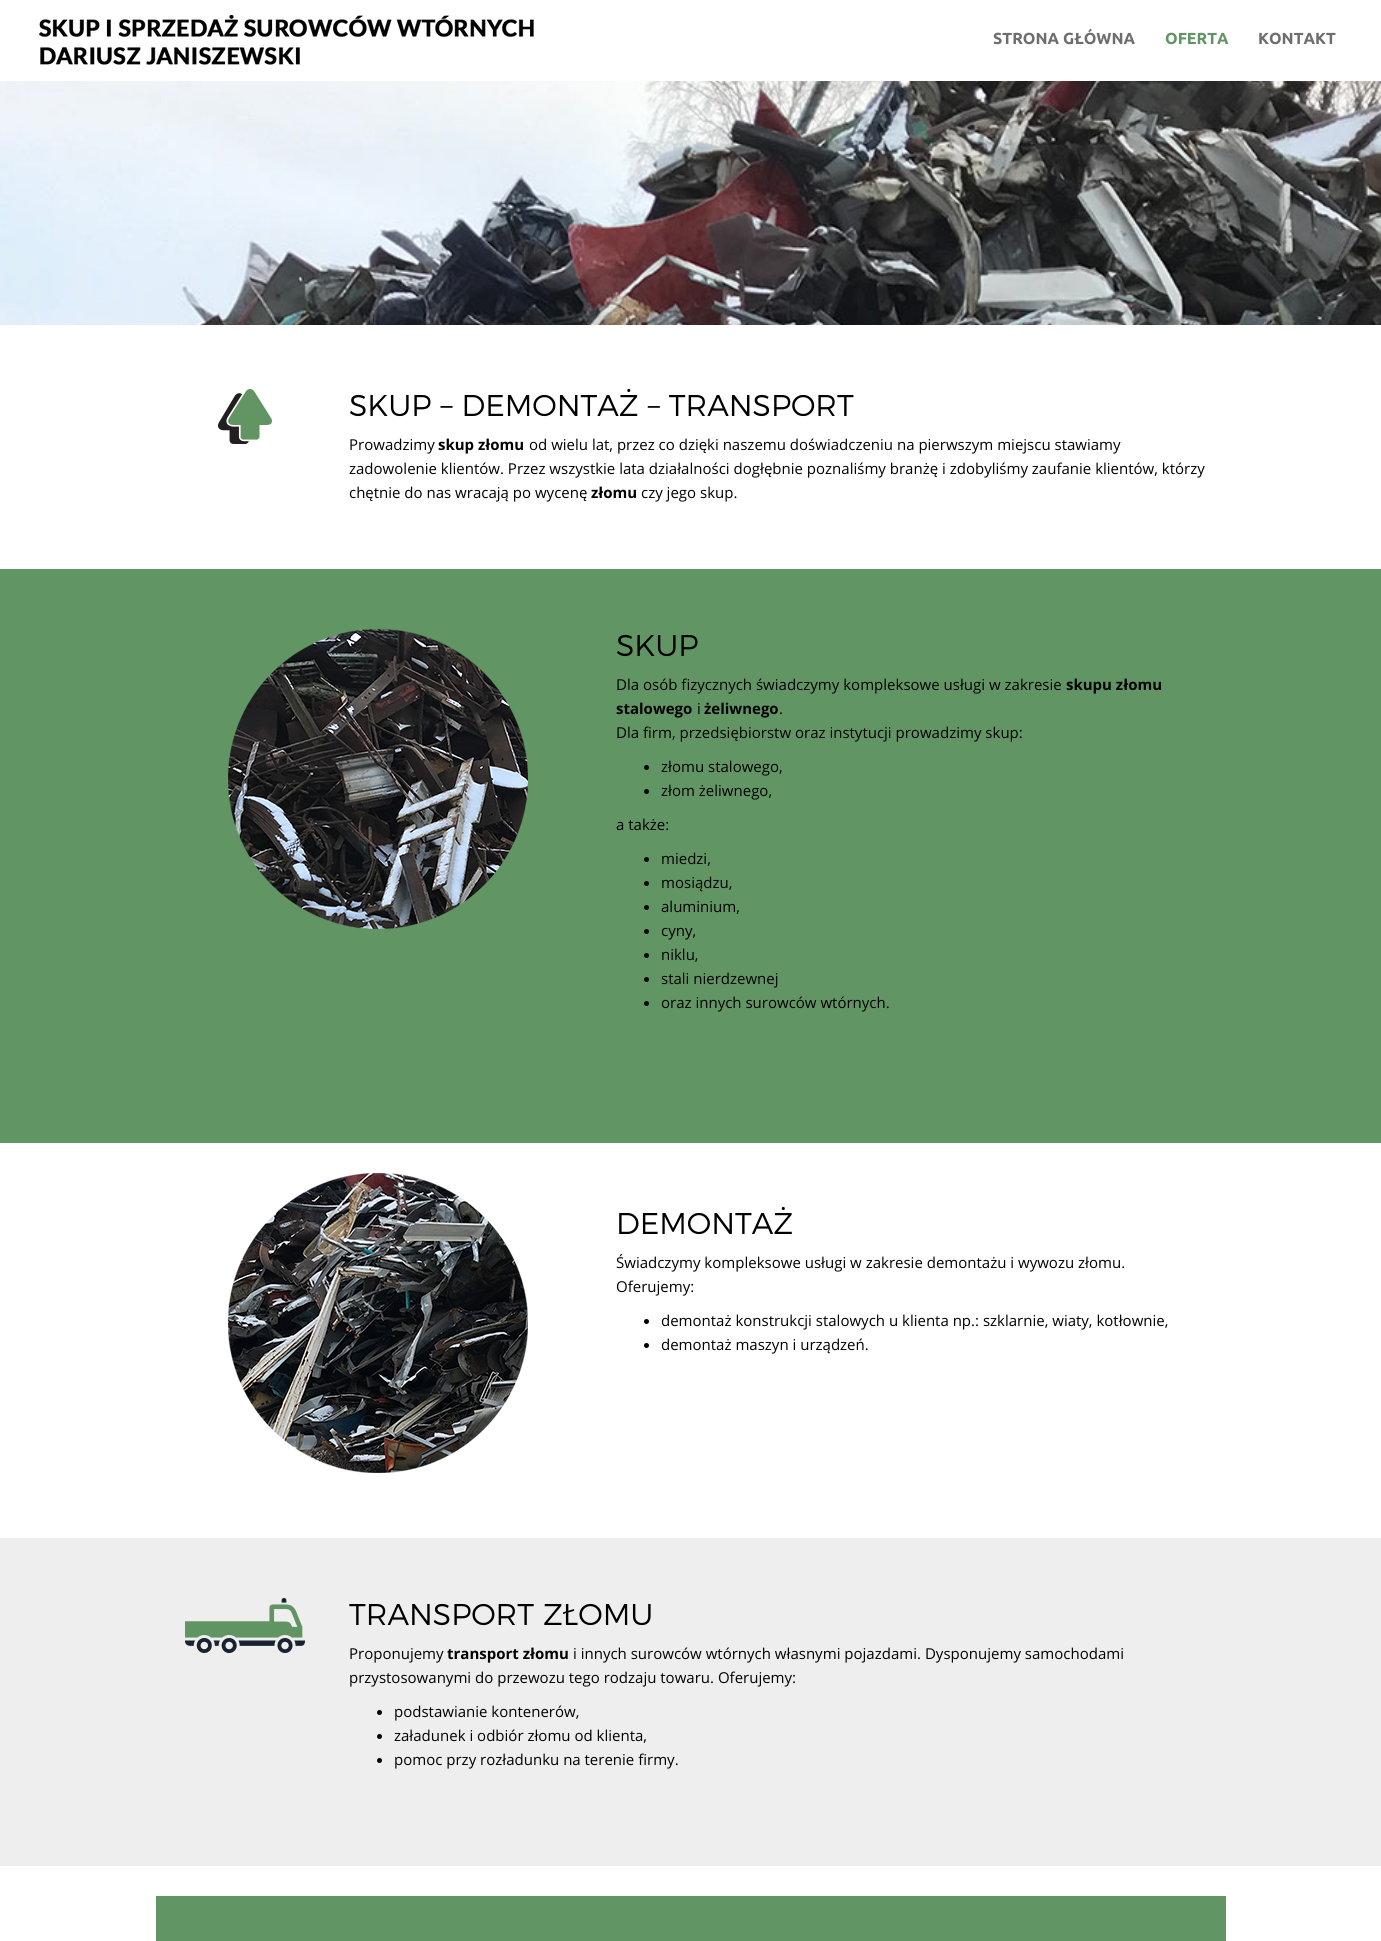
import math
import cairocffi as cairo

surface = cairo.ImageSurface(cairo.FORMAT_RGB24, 1381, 1941)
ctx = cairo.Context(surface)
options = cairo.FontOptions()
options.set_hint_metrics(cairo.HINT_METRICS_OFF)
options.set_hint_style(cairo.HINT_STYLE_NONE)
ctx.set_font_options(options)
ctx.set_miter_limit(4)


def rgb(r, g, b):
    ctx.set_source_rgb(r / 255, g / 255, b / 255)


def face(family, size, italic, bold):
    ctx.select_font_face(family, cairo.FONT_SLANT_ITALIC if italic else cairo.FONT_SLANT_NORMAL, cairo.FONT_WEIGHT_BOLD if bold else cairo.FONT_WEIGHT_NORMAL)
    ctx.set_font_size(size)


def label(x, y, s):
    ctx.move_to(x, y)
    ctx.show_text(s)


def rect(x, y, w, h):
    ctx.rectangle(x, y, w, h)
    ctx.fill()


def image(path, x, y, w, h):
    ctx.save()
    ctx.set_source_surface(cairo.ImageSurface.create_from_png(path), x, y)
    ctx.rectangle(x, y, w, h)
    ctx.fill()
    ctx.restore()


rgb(255, 255, 255)
ctx.paint()
image('image0.png', 39, 15, 495, 50)
face('Ubuntu', 16, 0, 1)
rgb(110, 110, 110)
label(993, 44, 'STRONA GŁÓWNA')
rgb(98, 149, 100)
label(1165, 44, 'OFERTA')
rgb(110, 110, 110)
label(1258, 44, 'KONTAKT')
image('image1.png', 0, 81, 1381, 244)
image('image2.png', 218, 389, 54, 55)
face('Montserrat Light', 30, 0, 0)
rgb(0, 0, 0)
label(349, 416, 'SKUP – DEMONTAŻ – TRANSPORT')
face('Open Sans', 15, 0, 0)
label(349, 450, 'Prowadzimy')
face('Open Sans', 15, 0, 1)
label(438, 450, 'skup złomu')
face('Open Sans', 15, 0, 0)
label(529, 450, 'od wielu lat, przez co dzięki naszemu doświadczeniu na pierwszym miejscu stawiamy')
label(349, 474, 'zadowolenie klientów. Przez wszystkie lata działalności dogłębnie poznaliśmy branżę i zdobyliśmy zaufanie klientów, którzy')
label(349, 498, 'chętnie do nas wracają po wycenę')
face('Open Sans', 15, 0, 1)
label(591, 498, 'złomu')
face('Open Sans', 15, 0, 0)
label(641, 498, 'czy jego skup.')
rgb(98, 149, 100)
rect(0, 569, 1381, 574)
image('image3.png', 228, 629, 300, 300)
face('Montserrat Light', 30, 0, 0)
rgb(0, 0, 0)
label(616, 656, 'SKUP')
face('Open Sans', 15, 0, 0)
label(616, 690, 'Dla osób fizycznych świadczymy kompleksowe usługi w zakresie')
face('Open Sans', 15, 0, 1)
label(1066, 690, 'skupu złomu')
label(616, 714, 'stalowego')
face('Open Sans', 15, 0, 0)
label(697, 714, 'i')
face('Open Sans', 15, 0, 1)
label(704, 714, 'żeliwnego')
face('Open Sans', 15, 0, 0)
label(779, 714, '.')
label(616, 738, 'Dla firm, przedsiębiorstw oraz instytucji prowadzimy skup:')
ctx.new_path()
ctx.arc(646.5, 767.5, 2.5, 0, 2 * math.pi)
ctx.fill()
label(661, 772, 'złomu stalowego,')
ctx.new_path()
ctx.arc(646.5, 791.5, 2.5, 0, 2 * math.pi)
ctx.fill()
label(661, 796, 'złom żeliwnego,')
label(616, 830, 'a także:')
ctx.new_path()
ctx.arc(646.5, 859.5, 2.5, 0, 2 * math.pi)
ctx.fill()
label(661, 864, 'miedzi,')
ctx.new_path()
ctx.arc(646.5, 883.5, 2.5, 0, 2 * math.pi)
ctx.fill()
label(661, 888, 'mosiądzu,')
ctx.new_path()
ctx.arc(646.5, 907.5, 2.5, 0, 2 * math.pi)
ctx.fill()
label(661, 912, 'aluminium,')
ctx.new_path()
ctx.arc(646.5, 931.5, 2.5, 0, 2 * math.pi)
ctx.fill()
label(661, 936, 'cyny,')
ctx.new_path()
ctx.arc(646.5, 955.5, 2.5, 0, 2 * math.pi)
ctx.fill()
label(661, 960, 'niklu,')
ctx.new_path()
ctx.arc(646.5, 979.5, 2.5, 0, 2 * math.pi)
ctx.fill()
label(661, 984, 'stali nierdzewnej')
ctx.new_path()
ctx.arc(646.5, 1003.5, 2.5, 0, 2 * math.pi)
ctx.fill()
label(661, 1008, 'oraz innych surowców wtórnych.')
image('image4.png', 228, 1173, 300, 300)
face('Montserrat Light', 30, 0, 0)
label(616, 1234, 'DEMONTAŻ')
face('Open Sans', 15, 0, 0)
label(616, 1268, 'Świadczymy kompleksowe usługi w zakresie demontażu i wywozu złomu.')
label(616, 1292, 'Oferujemy:')
ctx.new_path()
ctx.arc(646.5, 1321.5, 2.5, 0, 2 * math.pi)
ctx.fill()
label(661, 1326, 'demontaż konstrukcji stalowych u klienta np.: szklarnie, wiaty, kotłownie,')
ctx.new_path()
ctx.arc(646.5, 1345.5, 2.5, 0, 2 * math.pi)
ctx.fill()
label(661, 1350, 'demontaż maszyn i urządzeń.')
rgb(238, 238, 238)
rect(0, 1538, 1381, 328)
image('image5.png', 185, 1598, 120, 55)
face('Montserrat Light', 30, 0, 0)
rgb(0, 0, 0)
label(349, 1625, 'TRANSPORT ZŁOMU')
face('Open Sans', 15, 0, 0)
label(349, 1659, 'Proponujemy')
face('Open Sans', 15, 0, 1)
label(447, 1659, 'transport złomu')
face('Open Sans', 15, 0, 0)
label(573, 1659, 'i innych surowców wtórnych własnymi pojazdami. Dysponujemy samochodami')
label(349, 1683, 'przystosowanymi do przewozu tego rodzaju towaru. Oferujemy:')
ctx.new_path()
ctx.arc(379.5, 1712.5, 2.5, 0, 2 * math.pi)
ctx.fill()
label(394, 1717, 'podstawianie kontenerów,')
ctx.new_path()
ctx.arc(379.5, 1736.5, 2.5, 0, 2 * math.pi)
ctx.fill()
label(394, 1741, 'załadunek i odbiór złomu od klienta,')
ctx.new_path()
ctx.arc(379.5, 1760.5, 2.5, 0, 2 * math.pi)
ctx.fill()
label(394, 1765, 'pomoc przy rozładunku na terenie firmy.')
rgb(98, 149, 100)
rect(156, 1896, 1070, 45)
surface.write_to_png('render.png')
